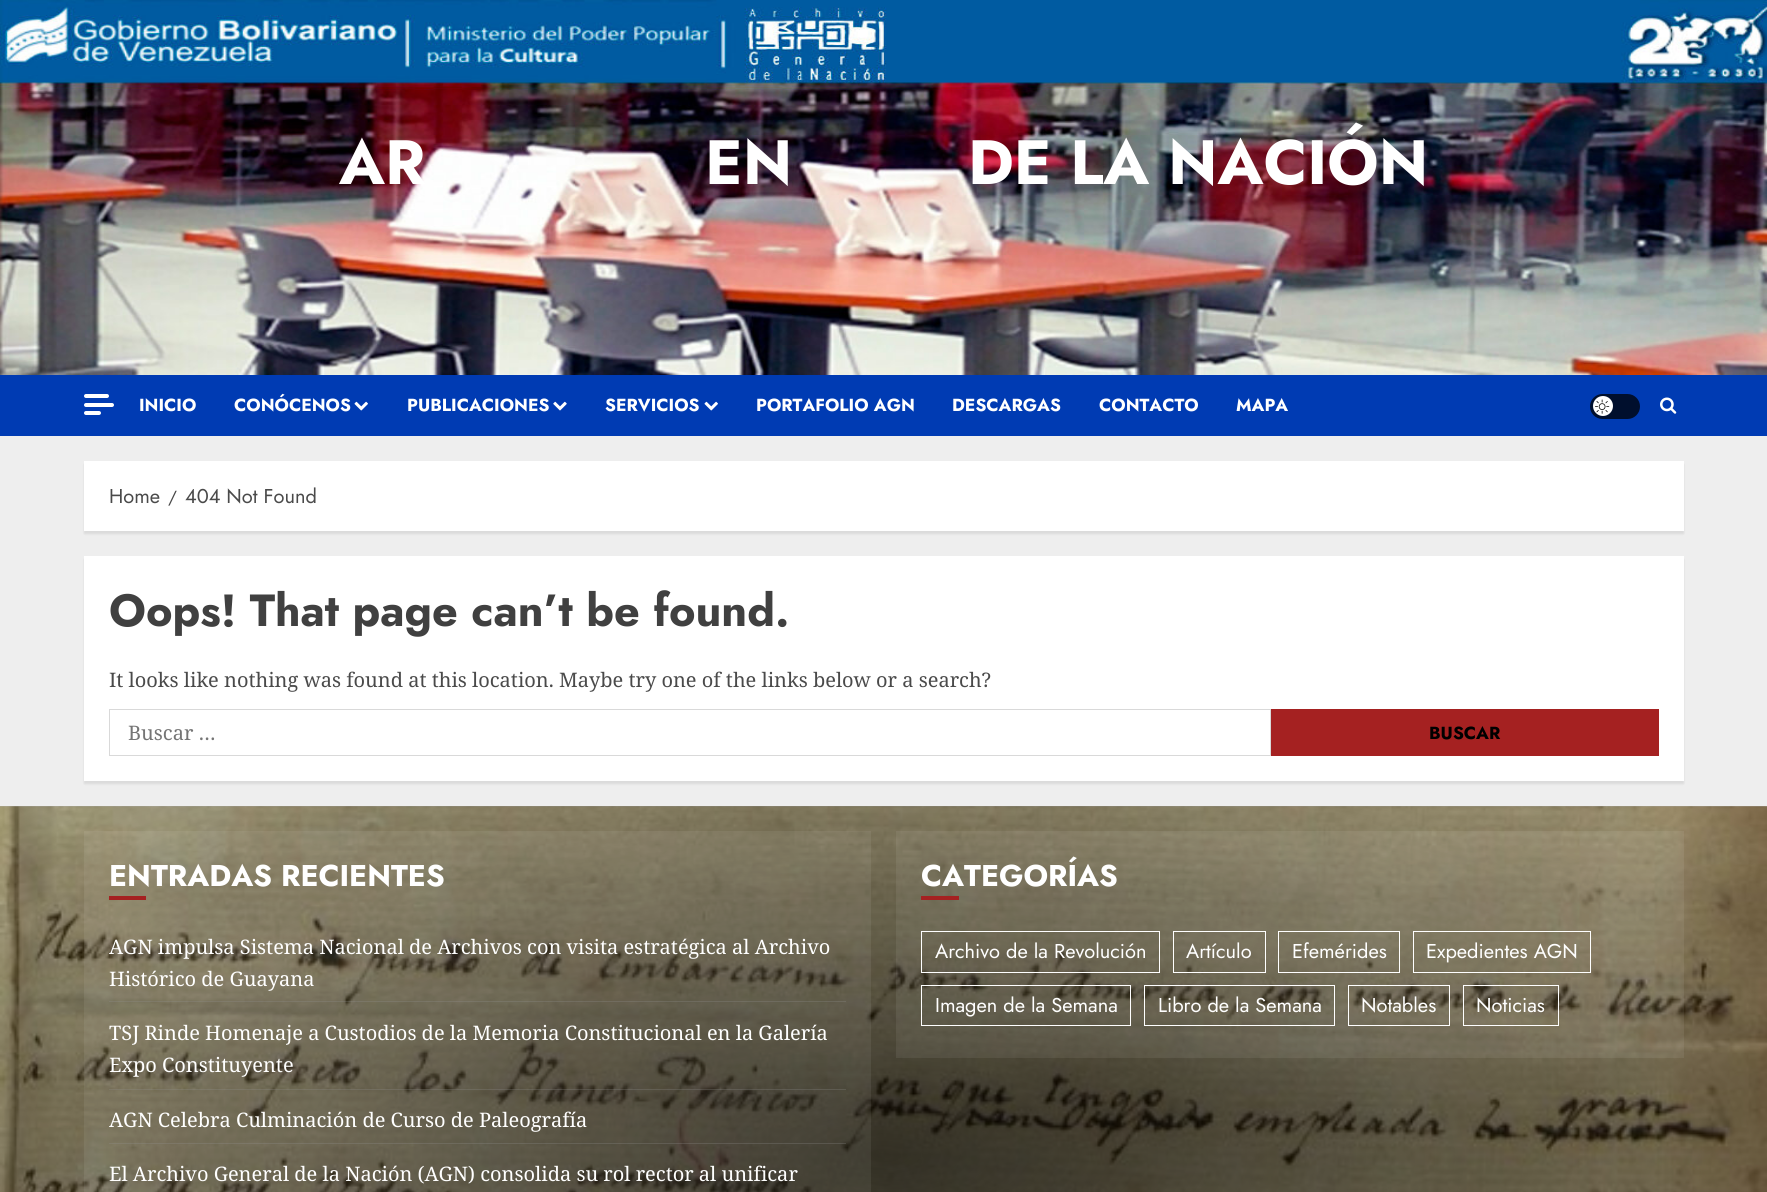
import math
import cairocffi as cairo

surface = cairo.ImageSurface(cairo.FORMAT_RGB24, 1767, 1192)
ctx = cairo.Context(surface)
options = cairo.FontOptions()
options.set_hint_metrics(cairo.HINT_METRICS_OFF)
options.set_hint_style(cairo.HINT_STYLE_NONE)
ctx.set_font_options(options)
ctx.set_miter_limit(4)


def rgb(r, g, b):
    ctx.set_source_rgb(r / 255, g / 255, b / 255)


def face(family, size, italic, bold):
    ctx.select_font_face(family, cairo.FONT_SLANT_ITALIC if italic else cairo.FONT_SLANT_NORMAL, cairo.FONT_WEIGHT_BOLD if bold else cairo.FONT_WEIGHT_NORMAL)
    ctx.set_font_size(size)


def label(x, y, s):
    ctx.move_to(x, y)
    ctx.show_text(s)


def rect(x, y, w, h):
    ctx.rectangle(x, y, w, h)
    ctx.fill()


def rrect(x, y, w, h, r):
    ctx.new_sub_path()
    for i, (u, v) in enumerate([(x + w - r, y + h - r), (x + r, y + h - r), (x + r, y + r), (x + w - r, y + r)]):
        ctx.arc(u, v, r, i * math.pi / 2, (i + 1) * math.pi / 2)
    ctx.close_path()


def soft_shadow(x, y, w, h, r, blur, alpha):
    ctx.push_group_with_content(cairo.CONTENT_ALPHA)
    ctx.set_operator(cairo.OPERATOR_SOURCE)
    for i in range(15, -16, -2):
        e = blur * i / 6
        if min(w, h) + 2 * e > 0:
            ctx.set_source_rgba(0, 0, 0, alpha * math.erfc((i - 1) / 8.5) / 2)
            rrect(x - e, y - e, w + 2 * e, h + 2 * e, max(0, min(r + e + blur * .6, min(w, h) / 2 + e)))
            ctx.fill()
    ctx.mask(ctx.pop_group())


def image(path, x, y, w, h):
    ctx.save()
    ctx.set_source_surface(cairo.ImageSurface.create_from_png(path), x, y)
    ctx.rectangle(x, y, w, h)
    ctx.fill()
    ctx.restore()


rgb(238, 238, 238)
ctx.paint()
image('image0.png', 0, 0, 1767, 375)
face('Jost', 62.5, 0, 1)
rgb(255, 255, 255)
label(339, 184, 'AR')
label(705, 184, 'EN')
label(968, 184, 'DE LA NACIÓN')
rgb(0, 59, 179)
rect(0, 375, 1767, 61)
rgb(255, 255, 255)
rrect(84, 394, 25, 4, 2)
ctx.fill()
rrect(84, 403, 30, 4, 2)
ctx.fill()
rrect(84, 411, 17, 4, 2)
ctx.fill()
face('Jost', 17.5, 0, 1)
label(139, 411, 'INICIO')
label(234, 411, 'CONÓCENOS')
image('image1.png', 354, 401, 14, 10)
label(407, 411, 'PUBLICACIONES')
image('image2.png', 553, 401, 14, 10)
label(605, 411, 'SERVICIOS')
image('image1.png', 704, 401, 14, 10)
label(756, 411, 'PORTAFOLIO AGN')
label(952, 411, 'DESCARGAS')
label(1099, 411, 'CONTACTO')
label(1236, 411, 'MAPA')
rgb(0, 15, 45)
rrect(1590, 394, 50, 25, 12.5)
ctx.fill()
rgb(255, 255, 255)
ctx.arc(1603, 406, 10, 0, 2 * math.pi)
ctx.fill()
image('image3.png', 1595, 399, 15, 15)
image('image4.png', 1660, 397, 17, 17)
rgb(0, 0, 0)
soft_shadow(84, 464, 1600, 70, 0, 1, 0.08)
rgb(255, 255, 255)
rect(84, 461, 1600, 70)
face('Jost', 20, 0, 0)
rgb(74, 74, 74)
label(109, 503, 'Home')
face('Jost', 17.5, 0, 0)
label(168, 503, '/')
face('Jost', 20, 0, 0)
label(185, 503, '404 Not Found')
rgb(0, 0, 0)
soft_shadow(84, 559, 1600, 225, 0, 1, 0.08)
rgb(255, 255, 255)
rect(84, 556, 1600, 225)
face('Jost', 45, 0, 1)
rgb(64, 64, 64)
label(109, 626, 'Oops! That page can’t be found.')
face('Noto Serif', 20, 0, 0)
rgb(74, 74, 74)
label(109, 687, 'It looks like nothing was found at this location. Maybe try one of the links below or a search?')
ctx.rectangle(109.5, 709.5, 1161, 46)
rgb(217, 217, 217)
ctx.set_line_width(1)
ctx.stroke()
rgb(117, 117, 117)
label(128, 740, 'Buscar …')
rgb(165, 33, 33)
rect(1271, 709, 388, 47)
face('Jost', 17.5, 0, 1)
rgb(0, 0, 0)
label(1429, 739, 'BUSCAR')
image('image5.png', 0, 806, 1767, 386)
gradient = cairo.RadialGradient(0, 0, 0, 0, 0, 1)
gradient.set_matrix(cairo.Matrix(1 / 1250, 0, 0, 1 / 494, -1 * 884 / 1250, -1 * 1156 / 494))
gradient.add_color_stop_rgba(0, 0, 0, 0, 0.75)
gradient.add_color_stop_rgba(0.5, 0, 0, 0, 0.5)
gradient.add_color_stop_rgba(1, 0, 0, 0, 0.25)
ctx.set_source(gradient)
rect(0, 806, 1767, 386)
ctx.set_source_rgba(1, 1, 1, 0.07)
rect(84, 831, 787, 361)
face('Jost', 30, 0, 1)
rgb(255, 255, 255)
label(109, 886, 'ENTRADAS RECIENTES')
rgb(165, 33, 33)
rect(109, 896, 37, 4)
ctx.set_source_rgba(0.588, 0.588, 0.588, 0.25)
rect(109, 1001, 737, 1)
face('Noto Serif', 20, 0, 0)
rgb(255, 255, 255)
label(109, 954, 'AGN impulsa Sistema Nacional de Archivos con visita estratégica al Archivo')
label(109, 986, 'Histórico de Guayana')
ctx.set_source_rgba(0.588, 0.588, 0.588, 0.25)
rect(109, 1089, 737, 1)
rgb(255, 255, 255)
label(109, 1040, 'TSJ Rinde Homenaje a Custodios de la Memoria Constitucional en la Galería')
label(109, 1072, 'Expo Constituyente')
ctx.set_source_rgba(0.588, 0.588, 0.588, 0.25)
rect(109, 1143, 737, 1)
rgb(255, 255, 255)
label(109, 1127, 'AGN Celebra Culminación de Curso de Paleografía')
label(109, 1181, 'El Archivo General de la Nación (AGN) consolida su rol rector al unificar')
ctx.set_source_rgba(1, 1, 1, 0.07)
rect(896, 831, 788, 227)
face('Jost', 30, 0, 1)
rgb(255, 255, 255)
label(921, 886, 'CATEGORÍAS')
rgb(165, 33, 33)
rect(921, 896, 38, 4)
ctx.rectangle(921.5, 931.5, 238, 41)
rgb(255, 255, 255)
ctx.stroke()
face('Jost', 20, 0, 0)
label(935, 958, 'Archivo de la Revolución')
ctx.rectangle(1173.5, 931.5, 92, 41)
ctx.stroke()
label(1186, 958, 'Artículo')
ctx.rectangle(1278.5, 931.5, 121, 41)
ctx.stroke()
label(1292, 958, 'Efemérides')
ctx.rectangle(1413.5, 931.5, 177, 41)
ctx.stroke()
label(1426, 958, 'Expedientes AGN')
ctx.rectangle(921.5, 985.5, 209, 40)
ctx.stroke()
label(935, 1012, 'Imagen de la Semana')
ctx.rectangle(1144.5, 985.5, 190, 40)
ctx.stroke()
label(1158, 1012, 'Libro de la Semana')
ctx.rectangle(1348.5, 985.5, 101, 40)
ctx.stroke()
label(1361, 1012, 'Notables')
ctx.rectangle(1463.5, 985.5, 95, 40)
ctx.stroke()
label(1476, 1012, 'Noticias')
surface.write_to_png('render.png')
